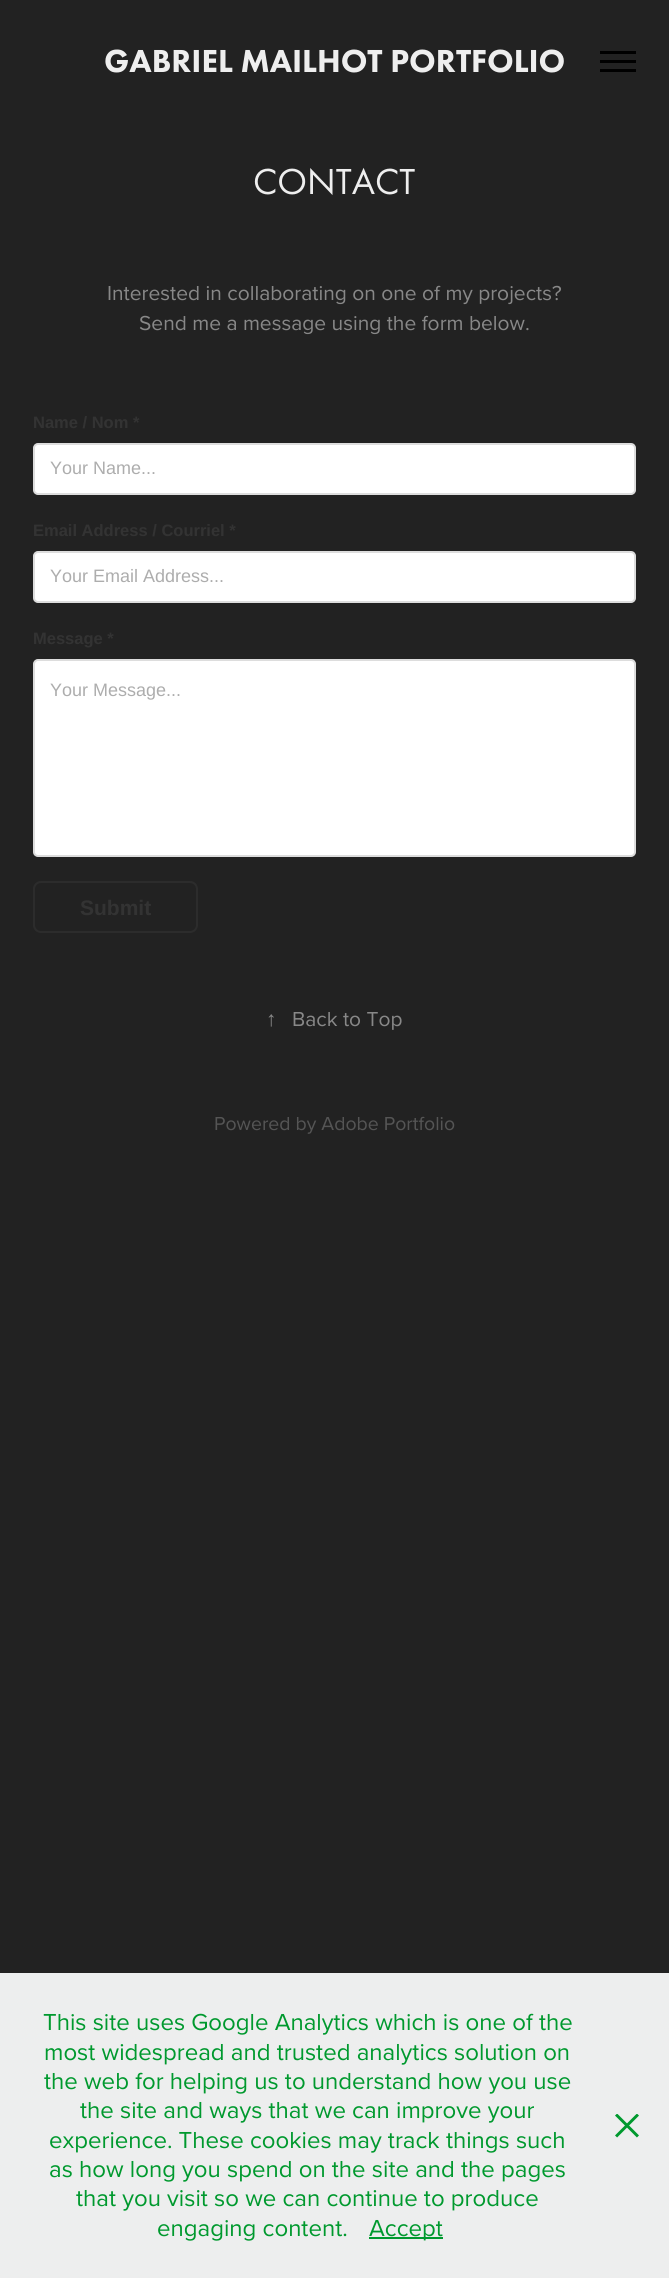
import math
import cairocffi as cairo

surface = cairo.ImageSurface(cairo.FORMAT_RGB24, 669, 2278)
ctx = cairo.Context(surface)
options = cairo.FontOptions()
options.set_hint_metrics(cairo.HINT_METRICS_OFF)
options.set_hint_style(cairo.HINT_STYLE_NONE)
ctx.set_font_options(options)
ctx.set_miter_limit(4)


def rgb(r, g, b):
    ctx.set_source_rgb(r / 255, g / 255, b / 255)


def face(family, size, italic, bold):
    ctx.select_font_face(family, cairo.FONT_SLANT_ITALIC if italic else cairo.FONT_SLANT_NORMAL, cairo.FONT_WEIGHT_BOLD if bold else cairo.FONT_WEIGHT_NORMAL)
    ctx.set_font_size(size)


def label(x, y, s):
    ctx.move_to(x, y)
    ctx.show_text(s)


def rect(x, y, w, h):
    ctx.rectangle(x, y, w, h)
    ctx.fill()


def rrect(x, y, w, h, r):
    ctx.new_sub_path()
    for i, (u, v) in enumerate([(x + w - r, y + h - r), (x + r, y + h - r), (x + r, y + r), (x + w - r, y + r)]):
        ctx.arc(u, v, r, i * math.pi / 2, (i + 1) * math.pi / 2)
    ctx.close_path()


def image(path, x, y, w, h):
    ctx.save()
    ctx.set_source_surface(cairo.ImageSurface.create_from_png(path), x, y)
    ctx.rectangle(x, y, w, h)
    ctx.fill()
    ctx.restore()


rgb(34, 34, 34)
ctx.paint()
face('Futura PT Black', 33, 0, 0)
rgb(238, 238, 238)
label(104, 72, 'GABRIEL MAILHOT PORTFOLIO')
rgb(0, 0, 0)
rect(600, 51, 36, 3)
rect(600, 60, 36, 3)
rect(600, 69, 36, 3)
face('Futura PT', 37.5, 0, 0)
rgb(238, 238, 238)
label(253, 194, 'CONTACT')
face('Proxima Nova', 21, 0, 0)
rgb(136, 136, 136)
label(107, 300, 'Interested in collaborating on one of my projects?')
label(139, 330, 'Send me a message using the form below.')
face('Liberation Sans', 16.5, 0, 1)
rgb(51, 51, 51)
label(33, 428, 'Name / Nom *')
rgb(255, 255, 255)
rrect(34, 444, 601, 50, 4)
ctx.fill_preserve()
rgb(221, 221, 221)
ctx.stroke()
face('Liberation Sans', 18, 0, 0)
rgb(173, 173, 173)
label(50, 474, 'Your Name...')
face('Liberation Sans', 16.5, 0, 1)
rgb(51, 51, 51)
label(33, 536, 'Email Address / Courriel *')
rgb(255, 255, 255)
rrect(34, 552, 601, 50, 4)
ctx.fill_preserve()
rgb(221, 221, 221)
ctx.stroke()
face('Liberation Sans', 18, 0, 0)
rgb(173, 173, 173)
label(50, 582, 'Your Email Address...')
face('Liberation Sans', 16.5, 0, 1)
rgb(51, 51, 51)
label(33, 644, 'Message *')
rgb(255, 255, 255)
rrect(34, 660, 601, 196, 4)
ctx.fill_preserve()
rgb(221, 221, 221)
ctx.stroke()
face('Liberation Sans', 18, 0, 0)
rgb(173, 173, 173)
label(50, 696, 'Your Message...')
rrect(34, 882, 163, 50, 7)
rgb(44, 44, 44)
ctx.stroke()
face('Liberation Sans', 21, 0, 1)
rgb(51, 51, 51)
label(80, 915, 'Submit')
face('Liberation Serif', 21, 0, 0)
rgb(136, 136, 136)
label(266, 1026, '↑')
face('Proxima Nova', 21, 0, 0)
label(292, 1026, 'Back to Top')
face('Proxima Nova', 19.5, 0, 0)
rgb(85, 85, 85)
label(214, 1130, 'Powered by Adobe Portfolio')
rgb(237, 238, 238)
rect(0, 1973, 669, 305)
face('Proxima Nova', 24, 0, 0)
rgb(0, 153, 46)
label(43, 2030, 'This site uses Google Analytics which is one of the')
label(44, 2060, 'most widespread and trusted analytics solution on')
label(44, 2089, 'the web for helping us to understand how you use')
label(80, 2118, 'the site and ways that we can improve your')
label(49, 2148, 'experience. These cookies may track things such')
label(49, 2177, 'as how long you spend on the site and the pages')
label(76, 2206, 'that you visit so we can continue to produce')
label(157, 2236, 'engaging content.')
rect(369, 2237, 74, 2)
label(369, 2236, 'Accept')
image('image0.png', 615, 2114, 24, 24)
surface.write_to_png('render.png')
